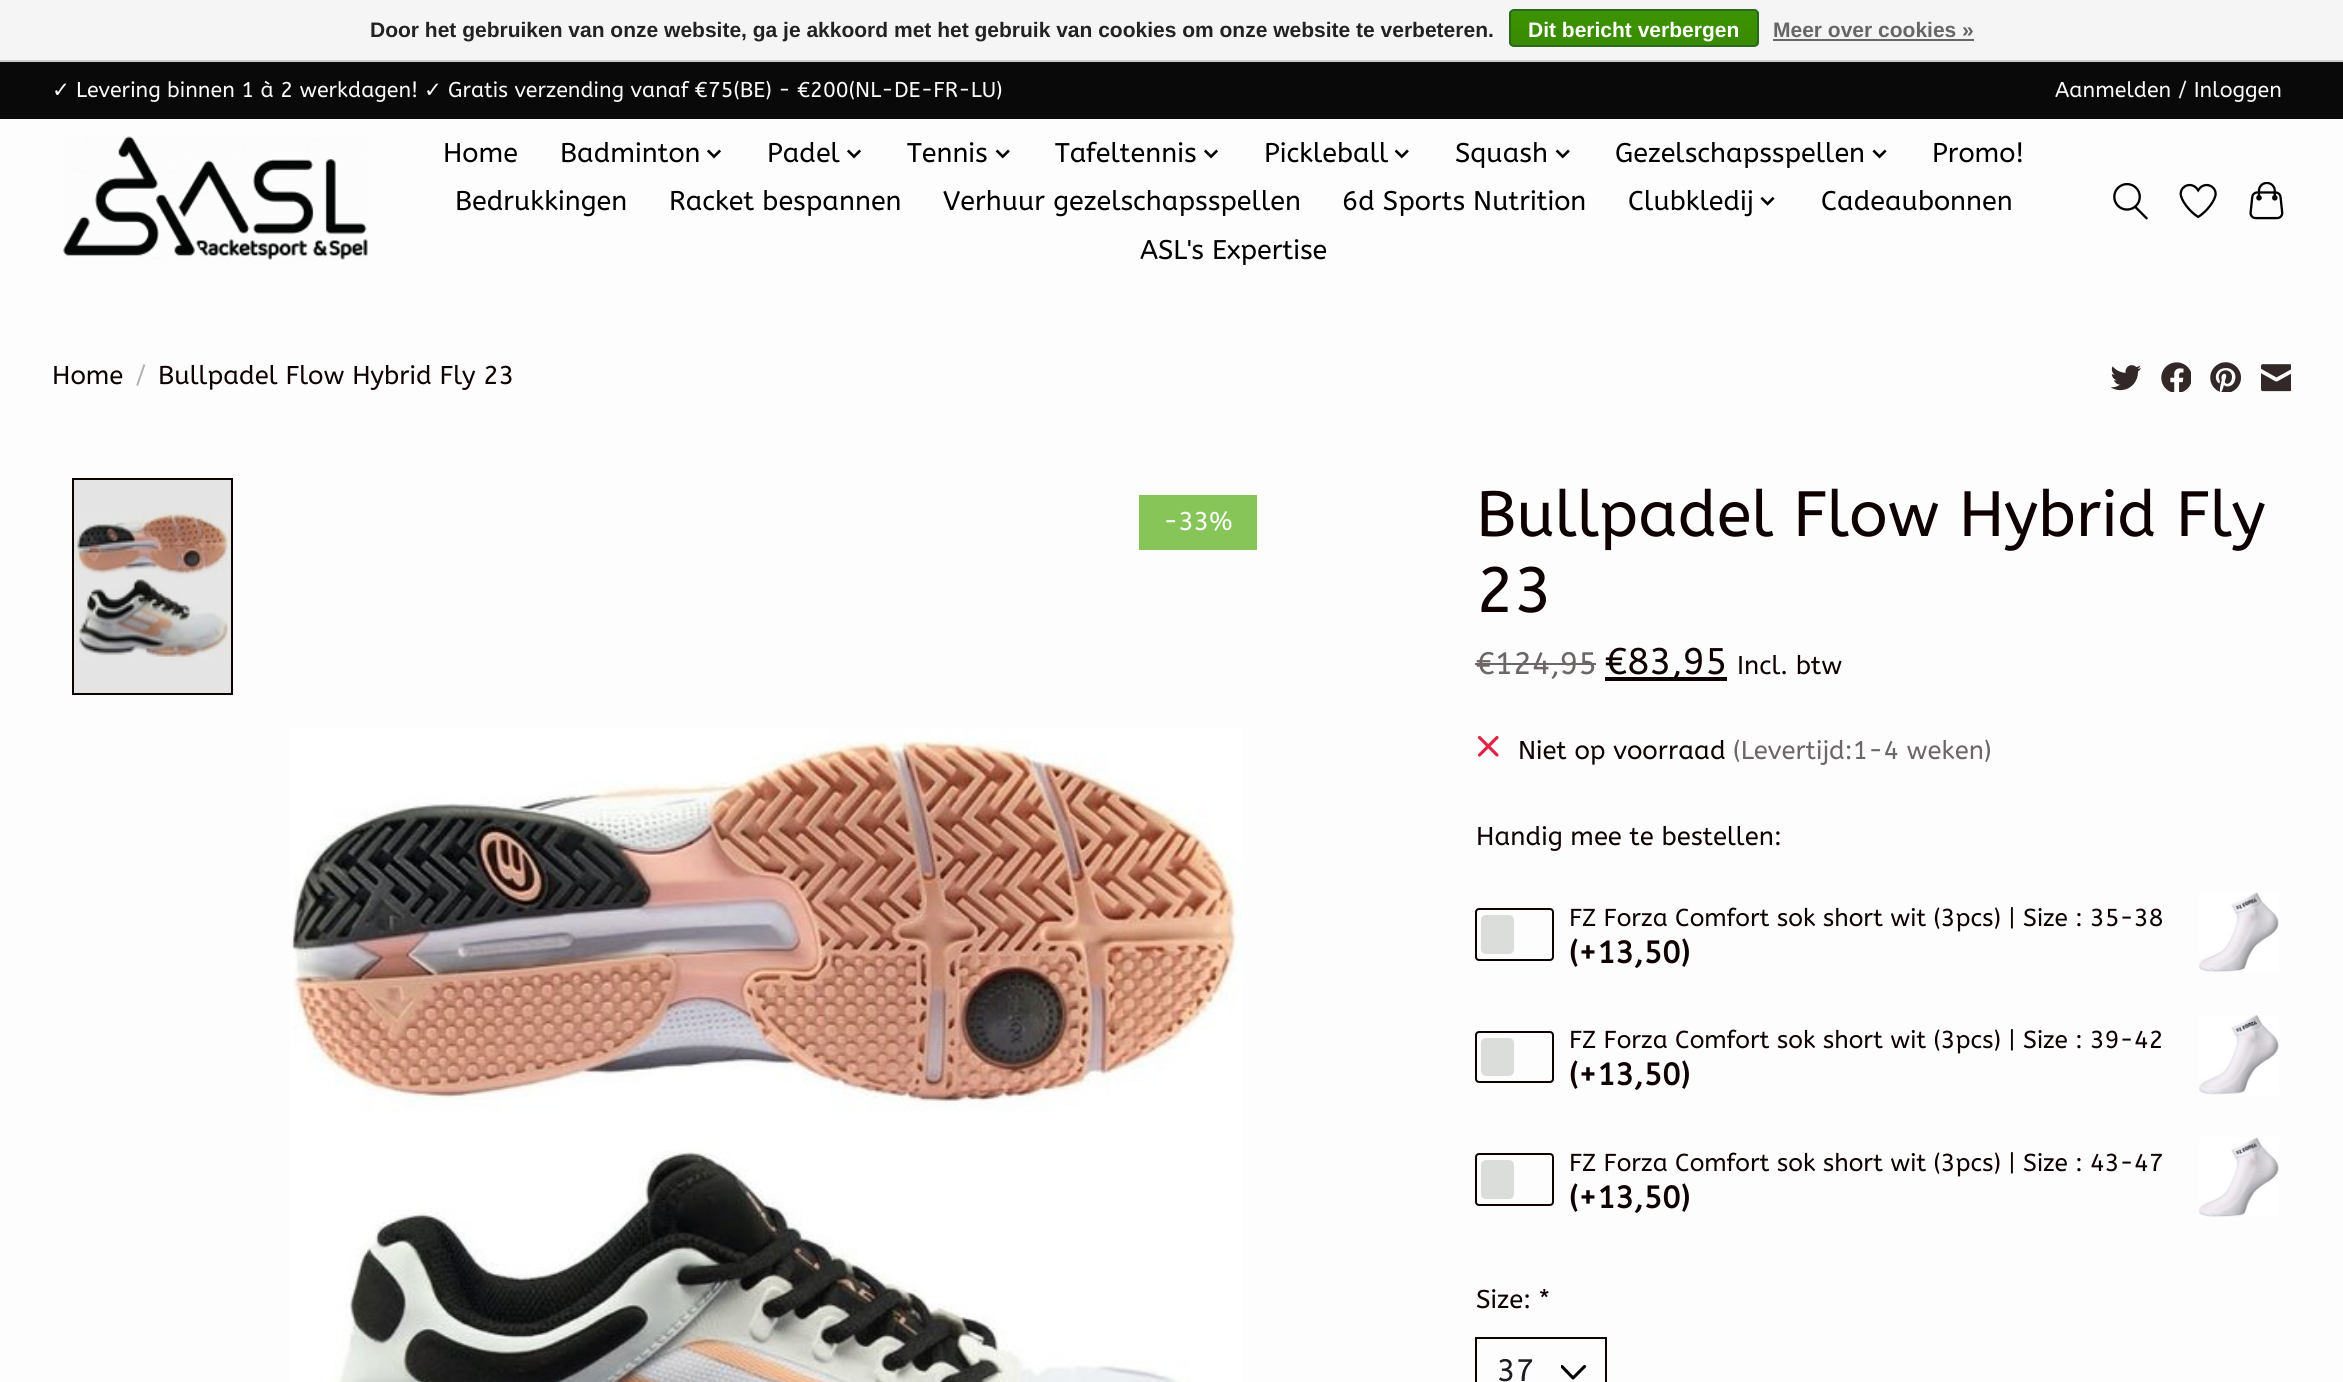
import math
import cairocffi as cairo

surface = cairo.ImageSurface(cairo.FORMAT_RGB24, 2343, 1382)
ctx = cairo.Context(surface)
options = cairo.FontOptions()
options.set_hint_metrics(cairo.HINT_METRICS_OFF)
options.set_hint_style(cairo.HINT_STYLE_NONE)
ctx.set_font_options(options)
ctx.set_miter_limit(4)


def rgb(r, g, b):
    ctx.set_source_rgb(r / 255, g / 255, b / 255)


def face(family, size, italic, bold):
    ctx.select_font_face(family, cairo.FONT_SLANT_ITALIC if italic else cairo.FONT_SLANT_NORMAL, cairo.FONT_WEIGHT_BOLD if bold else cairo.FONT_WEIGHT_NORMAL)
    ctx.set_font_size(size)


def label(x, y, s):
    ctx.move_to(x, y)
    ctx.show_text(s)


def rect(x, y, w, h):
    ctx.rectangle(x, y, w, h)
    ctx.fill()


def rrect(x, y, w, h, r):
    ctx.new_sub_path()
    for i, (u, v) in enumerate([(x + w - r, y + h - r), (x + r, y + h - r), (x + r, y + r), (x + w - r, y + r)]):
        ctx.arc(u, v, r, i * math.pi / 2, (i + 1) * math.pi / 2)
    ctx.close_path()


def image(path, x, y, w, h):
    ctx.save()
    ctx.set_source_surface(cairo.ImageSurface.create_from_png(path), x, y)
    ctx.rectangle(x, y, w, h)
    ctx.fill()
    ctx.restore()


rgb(253, 253, 253)
ctx.paint()
rgb(228, 228, 228)
rect(74, 480, 157, 213)
rgb(245, 245, 245)
rect(0, 0, 2343, 60)
rgb(204, 204, 204)
rect(0, 60, 2343, 2)
face('Liberation Sans', 21, 0, 1)
rgb(34, 34, 34)
label(370, 37, 'Door het gebruiken van onze website, ga je akkoord met het gebruik van cookies om onze website te verbeteren.')
ctx.save()
rrect(1509, 9, 250, 38, 5)
ctx.clip()
gradient = cairo.LinearGradient(1634, 10, 1634, 46)
gradient.add_color_stop_rgba(0, 0.235, 0.576, 0, 1)
gradient.add_color_stop_rgba(1, 0.224, 0.541, 0, 1)
ctx.set_source(gradient)
rect(1509, 11, 250, 35)
ctx.restore()
rrect(1510, 10, 248, 36, 4)
rgb(41, 105, 29)
ctx.stroke()
rgb(255, 255, 255)
label(1528, 37, 'Dit bericht verbergen')
rgb(102, 102, 102)
label(1773, 37, 'Meer over cookies »')
rect(1773, 39, 201, 2)
rgb(10, 9, 9)
rect(0, 62, 2343, 57)
face('DejaVu Sans', 21.4, 0, 0)
rgb(249, 250, 252)
label(52, 97, '✓')
face('ABeeZee', 21.4, 0, 0)
label(76, 97, 'Levering binnen 1 à 2 werkdagen!')
face('DejaVu Sans', 21.4, 0, 0)
label(424, 97, '✓')
face('ABeeZee', 21.4, 0, 0)
label(448, 97, 'Gratis verzending vanaf €75(BE) - €200(NL-DE-FR-LU)')
label(2055, 97, 'Aanmelden / Inloggen')
image('image0.png', 63, 136, 305, 124)
face('ABeeZee', 27, 0, 0)
rgb(0, 0, 0)
label(443, 162, 'Home')
label(560, 162, 'Badminton')
image('image1.png', 707, 149, 14, 10)
label(767, 162, 'Padel')
image('image1.png', 847, 149, 14, 10)
label(907, 162, 'Tennis')
image('image2.png', 995, 149, 15, 10)
label(1055, 162, 'Tafeltennis')
image('image1.png', 1204, 149, 14, 10)
label(1264, 162, 'Pickleball')
image('image2.png', 1394, 149, 15, 10)
label(1455, 162, 'Squash')
image('image2.png', 1555, 149, 15, 10)
label(1615, 162, 'Gezelschapsspellen')
image('image3.png', 1872, 149, 15, 10)
label(1932, 162, 'Promo!')
label(455, 210, 'Bedrukkingen')
label(669, 210, 'Racket bespannen')
label(943, 210, 'Verhuur gezelschapsspellen')
label(1342, 210, '6d Sports Nutrition')
label(1628, 210, 'Clubkledij')
image('image4.png', 1760, 196, 15, 10)
label(1821, 210, 'Cadeaubonnen')
label(1140, 259, 'ASL\'s Expertise')
image('image5.png', 2113, 182, 35, 38)
image('image6.png', 2179, 183, 38, 36)
image('image7.png', 2249, 182, 35, 38)
face('ABeeZee', 25.7, 0, 0)
rgb(13, 1, 1)
label(52, 384, 'Home')
rgb(181, 177, 177)
label(135, 384, '/')
rgb(13, 1, 1)
label(158, 384, 'Bullpadel Flow Hybrid Fly 23')
image('image8.png', 2111, 365, 31, 26)
image('image9.png', 2161, 362, 30, 30)
image('image10.png', 2210, 362, 32, 30)
image('image11.png', 2261, 364, 30, 28)
image('image12.png', 74, 512, 156, 147)
ctx.rectangle(73, 479, 159, 215)
ctx.stroke()
image('image13.png', 290, 727, 953, 655)
rgb(136, 197, 89)
rect(1139, 495, 118, 55)
rgb(249, 250, 252)
label(1163, 530, '-33%')
face('ABeeZee', 63.9, 0, 0)
rgb(13, 1, 1)
label(1476, 536, 'Bullpadel Flow Hybrid Fly')
label(1476, 612, '23')
face('ABeeZee', 31, 0, 0)
rgb(109, 102, 102)
label(1476, 674, '€124,95')
rect(1475, 663, 121, 2)
rgb(13, 1, 1)
rect(1605, 677, 122, 4)
face('ABeeZee', 37, 0, 0)
label(1605, 674, '€83,95')
face('ABeeZee', 25.7, 0, 0)
label(1737, 674, 'Incl. btw')
ctx.new_path()
ctx.move_to(1497, 737.5)
ctx.line_to(1479.5, 755)
ctx.move_to(1479.5, 737.5)
ctx.line_to(1497, 755)
rgb(224, 36, 71)
ctx.set_line_width(3.2)
ctx.set_line_cap(cairo.LINE_CAP_ROUND)
ctx.set_line_join(cairo.LINE_JOIN_ROUND)
ctx.stroke()
rgb(13, 1, 1)
label(1518, 759, 'Niet op voorraad')
rgb(109, 102, 102)
label(1733, 759, '(Levertijd:1-4 weken)')
rgb(13, 1, 1)
label(1476, 845, 'Handig mee te bestellen:')
rrect(1476, 909, 77, 51, 3)
ctx.set_line_width(2)
ctx.set_line_cap(cairo.LINE_CAP_BUTT)
ctx.set_line_join(cairo.LINE_JOIN_MITER)
ctx.stroke()
rgb(219, 221, 219)
rrect(1481, 915, 33, 39, 5)
ctx.fill()
face('ABeeZee', 24.5, 0, 0)
rgb(13, 1, 1)
label(1569, 926, 'FZ Forza Comfort sok short wit (3pcs) | Size : 35-38')
face('ABeeZee', 31, 0, 1)
label(1569, 963, '(+13,50)')
image('image14.png', 2199, 892, 80, 80)
rrect(1476, 1032, 77, 50, 3)
ctx.stroke()
rgb(219, 221, 219)
rrect(1481, 1038, 33, 38, 5)
ctx.fill()
face('ABeeZee', 24.5, 0, 0)
rgb(13, 1, 1)
label(1569, 1048, 'FZ Forza Comfort sok short wit (3pcs) | Size : 39-42')
face('ABeeZee', 31, 0, 1)
label(1569, 1085, '(+13,50)')
image('image15.png', 2199, 1015, 80, 80)
rrect(1476, 1154, 77, 51, 3)
ctx.stroke()
rgb(219, 221, 219)
rrect(1481, 1160, 33, 39, 5)
ctx.fill()
face('ABeeZee', 24.5, 0, 0)
rgb(13, 1, 1)
label(1569, 1171, 'FZ Forza Comfort sok short wit (3pcs) | Size : 43-47')
face('ABeeZee', 31, 0, 1)
label(1569, 1208, '(+13,50)')
image('image14.png', 2199, 1137, 80, 80)
face('ABeeZee', 25.7, 0, 0)
label(1476, 1308, 'Size: *')
ctx.save()
ctx.rectangle(1561, 1360, 25, 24)
ctx.clip()
ctx.new_path()
ctx.move_to(1584.5, 1366.5)
ctx.line_to(1573, 1378)
ctx.line_to(1562, 1366.5)
rgb(0, 0, 0)
ctx.set_line_width(3.1)
ctx.set_line_cap(cairo.LINE_CAP_ROUND)
ctx.set_line_join(cairo.LINE_JOIN_ROUND)
ctx.stroke()
ctx.restore()
ctx.rectangle(1476, 1338, 130, 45)
ctx.stroke()
face('ABeeZee', 31, 0, 0)
rgb(28, 28, 33)
label(1497, 1381, '37')
surface.write_to_png('render.png')
